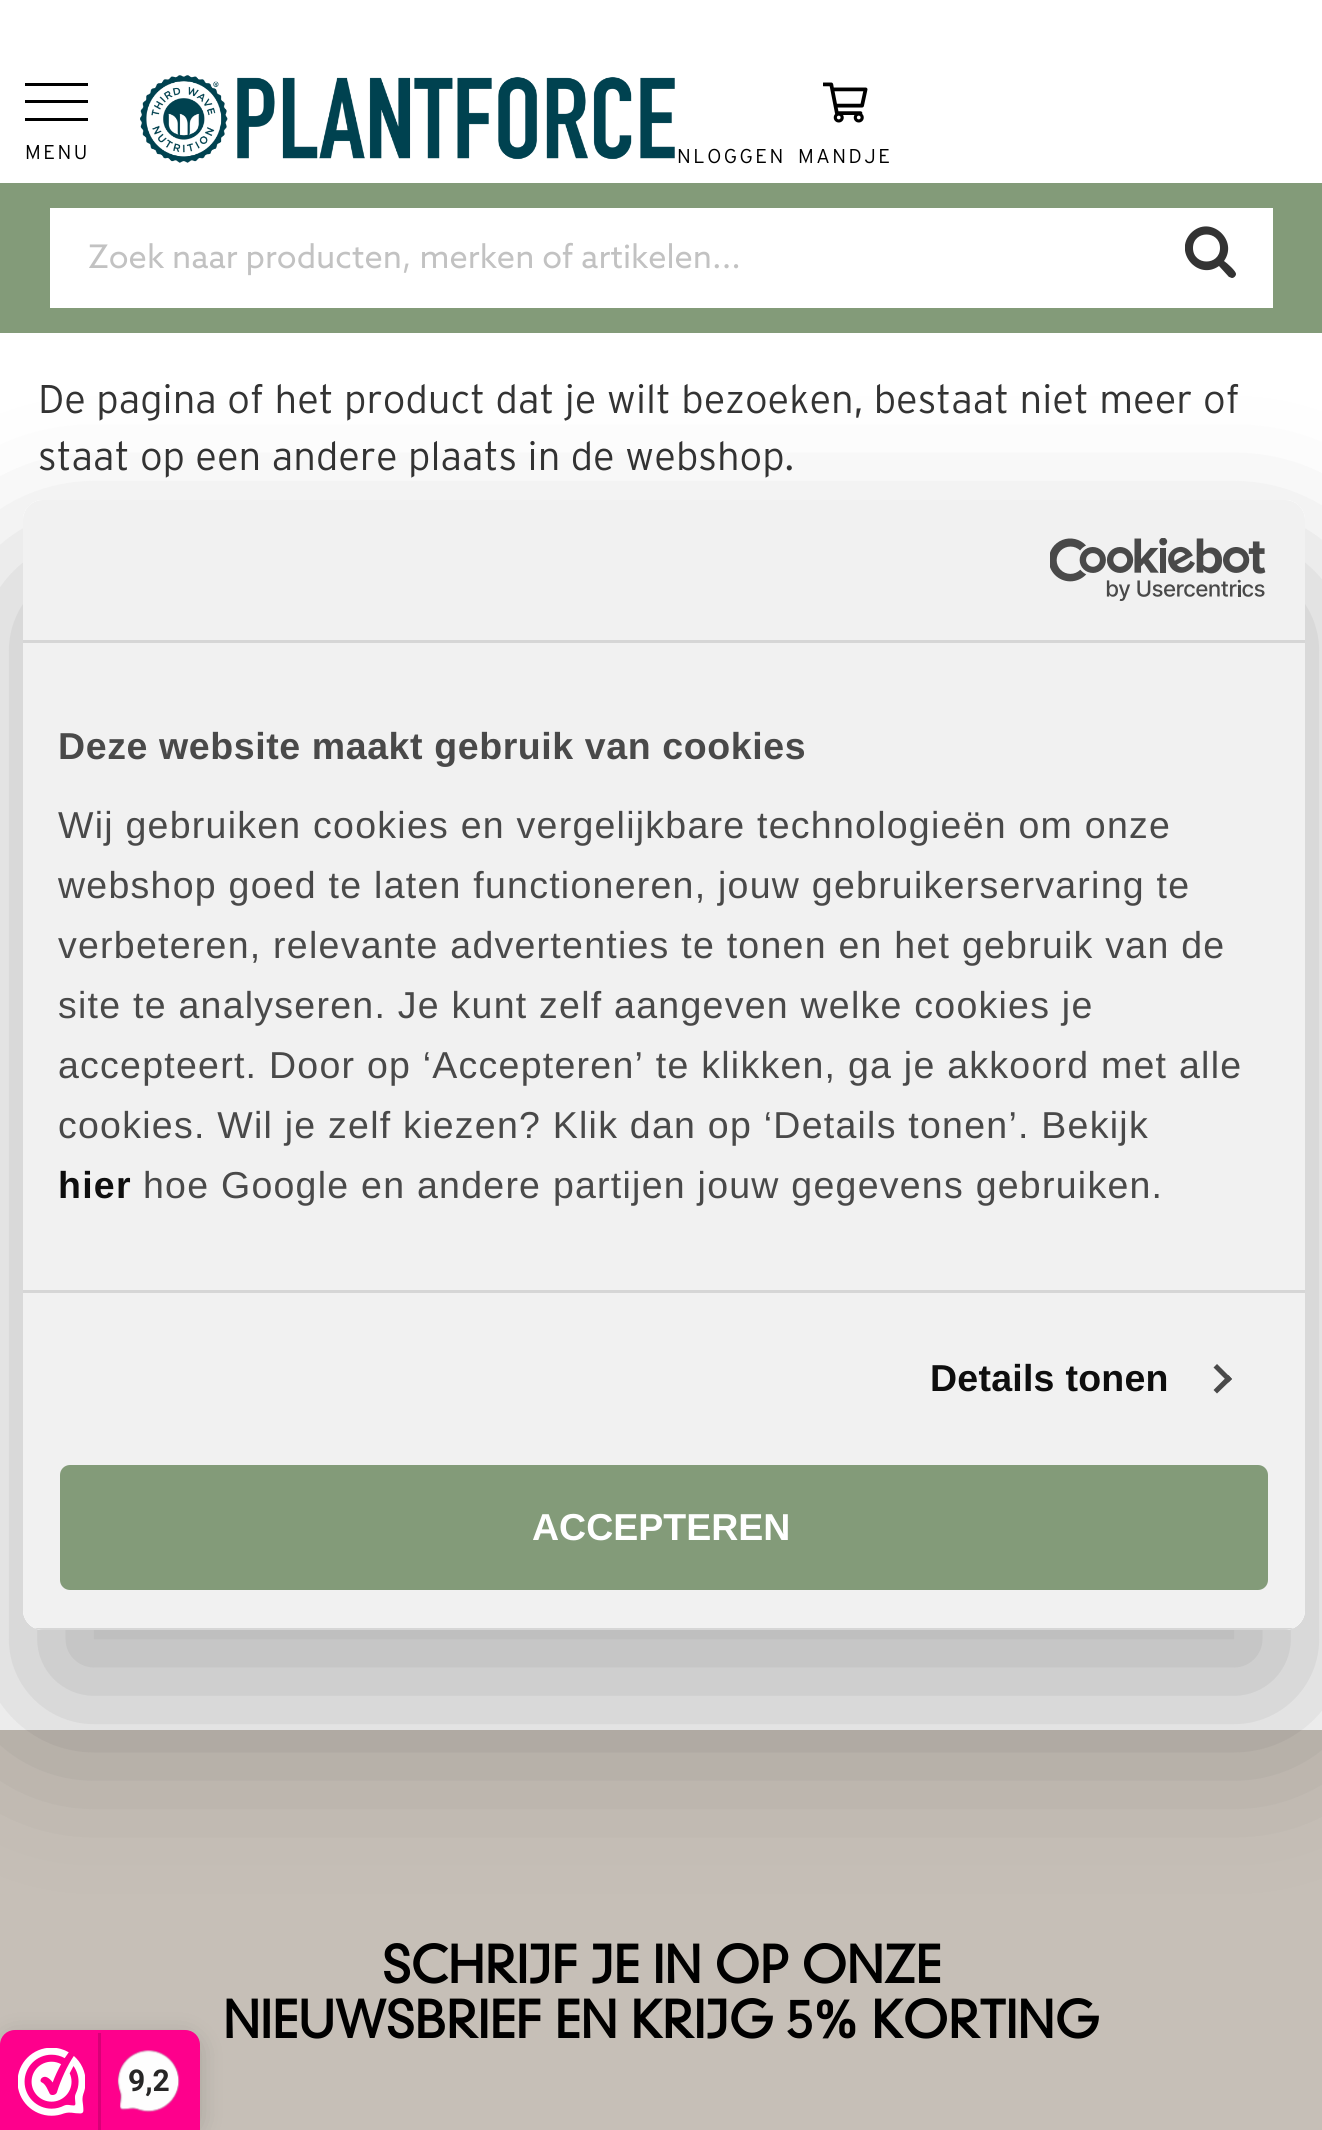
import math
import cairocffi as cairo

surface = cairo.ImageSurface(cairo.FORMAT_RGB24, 1322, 2130)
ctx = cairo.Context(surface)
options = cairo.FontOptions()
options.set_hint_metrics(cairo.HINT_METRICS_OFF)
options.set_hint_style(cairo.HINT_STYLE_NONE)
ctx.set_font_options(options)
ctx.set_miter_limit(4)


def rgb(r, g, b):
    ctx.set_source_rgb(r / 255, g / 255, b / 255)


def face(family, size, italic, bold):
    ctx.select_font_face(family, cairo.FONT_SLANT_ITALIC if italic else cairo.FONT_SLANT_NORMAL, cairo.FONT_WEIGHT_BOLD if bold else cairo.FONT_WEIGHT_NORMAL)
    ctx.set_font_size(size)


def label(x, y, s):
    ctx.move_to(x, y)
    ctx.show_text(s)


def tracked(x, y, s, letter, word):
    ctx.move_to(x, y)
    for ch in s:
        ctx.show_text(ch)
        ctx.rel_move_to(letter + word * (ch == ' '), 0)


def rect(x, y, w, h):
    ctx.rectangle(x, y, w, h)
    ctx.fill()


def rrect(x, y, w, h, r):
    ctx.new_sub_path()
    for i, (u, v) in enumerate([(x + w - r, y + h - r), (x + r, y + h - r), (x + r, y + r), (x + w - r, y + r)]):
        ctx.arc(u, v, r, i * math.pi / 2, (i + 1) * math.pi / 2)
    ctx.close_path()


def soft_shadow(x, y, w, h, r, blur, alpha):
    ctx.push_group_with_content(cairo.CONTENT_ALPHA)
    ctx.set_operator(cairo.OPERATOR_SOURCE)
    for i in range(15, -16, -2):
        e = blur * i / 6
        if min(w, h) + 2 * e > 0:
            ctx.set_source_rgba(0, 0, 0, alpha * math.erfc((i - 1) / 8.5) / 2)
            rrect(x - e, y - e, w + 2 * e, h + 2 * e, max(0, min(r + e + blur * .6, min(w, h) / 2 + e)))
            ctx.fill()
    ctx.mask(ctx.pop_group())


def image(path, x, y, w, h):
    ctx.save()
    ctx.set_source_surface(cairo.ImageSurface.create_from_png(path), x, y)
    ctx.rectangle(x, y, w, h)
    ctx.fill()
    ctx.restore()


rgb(255, 255, 255)
ctx.paint()
rgb(0, 0, 0)
rect(25, 83, 63, 3)
rect(25, 100, 63, 3)
rect(25, 118, 63, 3)
face('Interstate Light', 20, 0, 0)
tracked(25, 159, 'MENU', 2.5, 0)
image('image0.png', 140, 75, 535, 88)
tracked(677, 163, 'NLOGGEN', 2.5, 0)
image('image1.png', 823, 82, 45, 41)
tracked(798, 163, 'MANDJE', 2.5, 0)
rgb(131, 155, 121)
rect(0, 183, 1322, 150)
rgb(255, 255, 255)
rect(1185, 208, 88, 100)
rgb(51, 51, 51)
ctx.new_path()
ctx.move_to(1220, 248)
ctx.curve_to(1220, 266, 1193, 266, 1193, 248)
ctx.curve_to(1193, 230, 1220, 230, 1220, 248)
ctx.close_path()
ctx.move_to(1236, 274)
ctx.curve_to(1236, 271, 1227, 263, 1224, 261)
ctx.curve_to(1239, 240, 1210, 214, 1191, 233)
ctx.curve_to(1173, 252, 1198, 281, 1219, 266)
ctx.line_to(1229, 277)
ctx.curve_to(1230, 277, 1231, 278, 1232, 278)
ctx.curve_to(1234, 278, 1236, 276, 1236, 274)
ctx.close_path()
ctx.fill()
rgb(255, 255, 255)
rect(50, 208, 1135, 100)
face('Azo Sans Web', 32.5, 0, 0)
rgb(194, 194, 194)
label(88, 268, 'Zoek naar producten, merken of artikelen...')
face('Interstate Light', 40, 0, 0)
rgb(51, 51, 51)
label(38, 413, 'De pagina of het product dat je wilt bezoeken, bestaat niet meer of')
label(38, 470, 'staat op een andere plaats in de webshop.')
rgb(198, 191, 183)
rect(0, 1730, 1322, 400)
face('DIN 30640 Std', 50, 0, 1)
rgb(0, 0, 0)
label(382, 1983, 'SCHRIJF JE IN OP ONZE')
label(223, 2038, 'NIEUWSBRIEF EN KRIJG 5% KORTING')
ctx.save()
ctx.set_fill_rule(cairo.FILL_RULE_EVEN_ODD)
ctx.new_path()
ctx.move_to(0, 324)
ctx.line_to(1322, 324)
ctx.line_to(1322, 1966)
ctx.line_to(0, 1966)
ctx.close_path()
ctx.move_to(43, 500)
ctx.line_to(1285, 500)
ctx.curve_to(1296, 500, 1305, 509, 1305, 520)
ctx.line_to(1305, 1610)
ctx.curve_to(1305, 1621, 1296, 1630, 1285, 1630)
ctx.line_to(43, 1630)
ctx.curve_to(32, 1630, 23, 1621, 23, 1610)
ctx.line_to(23, 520)
ctx.curve_to(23, 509, 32, 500, 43, 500)
ctx.close_path()
ctx.clip()
rgb(0, 0, 0)
soft_shadow(23, 580, 1282, 1130, 20, 85, 0.3)
ctx.restore()
rgb(241, 241, 241)
rrect(23, 500, 1282, 1130, 20)
ctx.fill()
rgb(214, 214, 214)
rect(23, 640, 1282, 3)
image('image2.png', 1050, 538, 216, 63)
rect(23, 1290, 1282, 3)
face('Liberation Sans', 37.5, 0, 1)
rgb(73, 73, 73)
tracked(58, 759, 'Deze website maakt gebruik van cookies', 0.6, 0)
face('Liberation Sans', 37.5, 0, 0)
tracked(58, 838, 'Wij gebruiken cookies en vergelijkbare technologieën om onze', 1.25, 0)
tracked(58, 898, 'webshop goed te laten functioneren, jouw gebruikerservaring te', 1.25, 0)
tracked(58, 958, 'verbeteren, relevante advertenties te tonen en het gebruik van de', 1.25, 0)
tracked(58, 1018, 'site te analyseren. Je kunt zelf aangeven welke cookies je', 1.25, 0)
tracked(58, 1078, 'accepteert. Door op ‘Accepteren’ te klikken, ga je akkoord met alle', 1.25, 0)
tracked(58, 1138, 'cookies. Wil je zelf kiezen? Klik dan op ‘Details tonen’. Bekijk', 1.25, 0)
face('Liberation Sans', 37.5, 0, 1)
rgb(14, 14, 14)
tracked(58, 1198, 'hier', 1.25, 0)
face('Liberation Sans', 37.5, 0, 0)
rgb(73, 73, 73)
tracked(143, 1198, 'hoe Google en andere partijen jouw gegevens gebruiken.', 1.25, 0)
face('Liberation Sans', 37.5, 0, 1)
rgb(14, 14, 14)
tracked(930, 1391, 'Details tonen', 0.25, 0)
rgb(73, 73, 73)
ctx.new_path()
ctx.move_to(1217, 1364)
ctx.line_to(1232, 1379)
ctx.line_to(1228.5, 1382.5)
ctx.line_to(1213.5, 1367.5)
ctx.close_path()
ctx.fill()
ctx.new_path()
ctx.move_to(1228.5, 1375)
ctx.line_to(1232, 1379)
ctx.line_to(1217, 1393.5)
ctx.line_to(1213.5, 1390)
ctx.close_path()
ctx.fill()
ctx.save()
rrect(23, 500, 1282, 1130, 20)
ctx.clip()
rgb(214, 214, 214)
rect(34, 1628, 1260, 2)
ctx.restore()
rgb(131, 155, 121)
rrect(62.5, 1467.5, 1203, 120, 7.5)
ctx.fill_preserve()
ctx.set_line_width(5)
ctx.stroke()
rgb(255, 255, 255)
label(532, 1540, 'ACCEPTEREN')
rgb(0, 0, 0)
soft_shadow(0, 2035, 200, 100, 15, 12.5, 0.15)
rgb(254, 0, 140)
ctx.new_path()
ctx.move_to(15, 2030)
ctx.line_to(185, 2030)
ctx.curve_to(193.5, 2030, 200, 2036.5, 200, 2045)
ctx.line_to(200, 2130)
ctx.line_to(0, 2130)
ctx.line_to(0, 2045)
ctx.curve_to(0, 2036.5, 6.5, 2030, 15, 2030)
ctx.close_path()
ctx.fill()
image('image3.png', 18, 2048, 67, 68)
rgb(216, 0, 119)
rect(98, 2033, 3, 97)
image('image4.png', 117, 2050, 63, 63)
face('Roboto', 30, 0, 1)
rgb(39, 38, 38)
label(128, 2091, '9,2')
surface.write_to_png('render.png')
